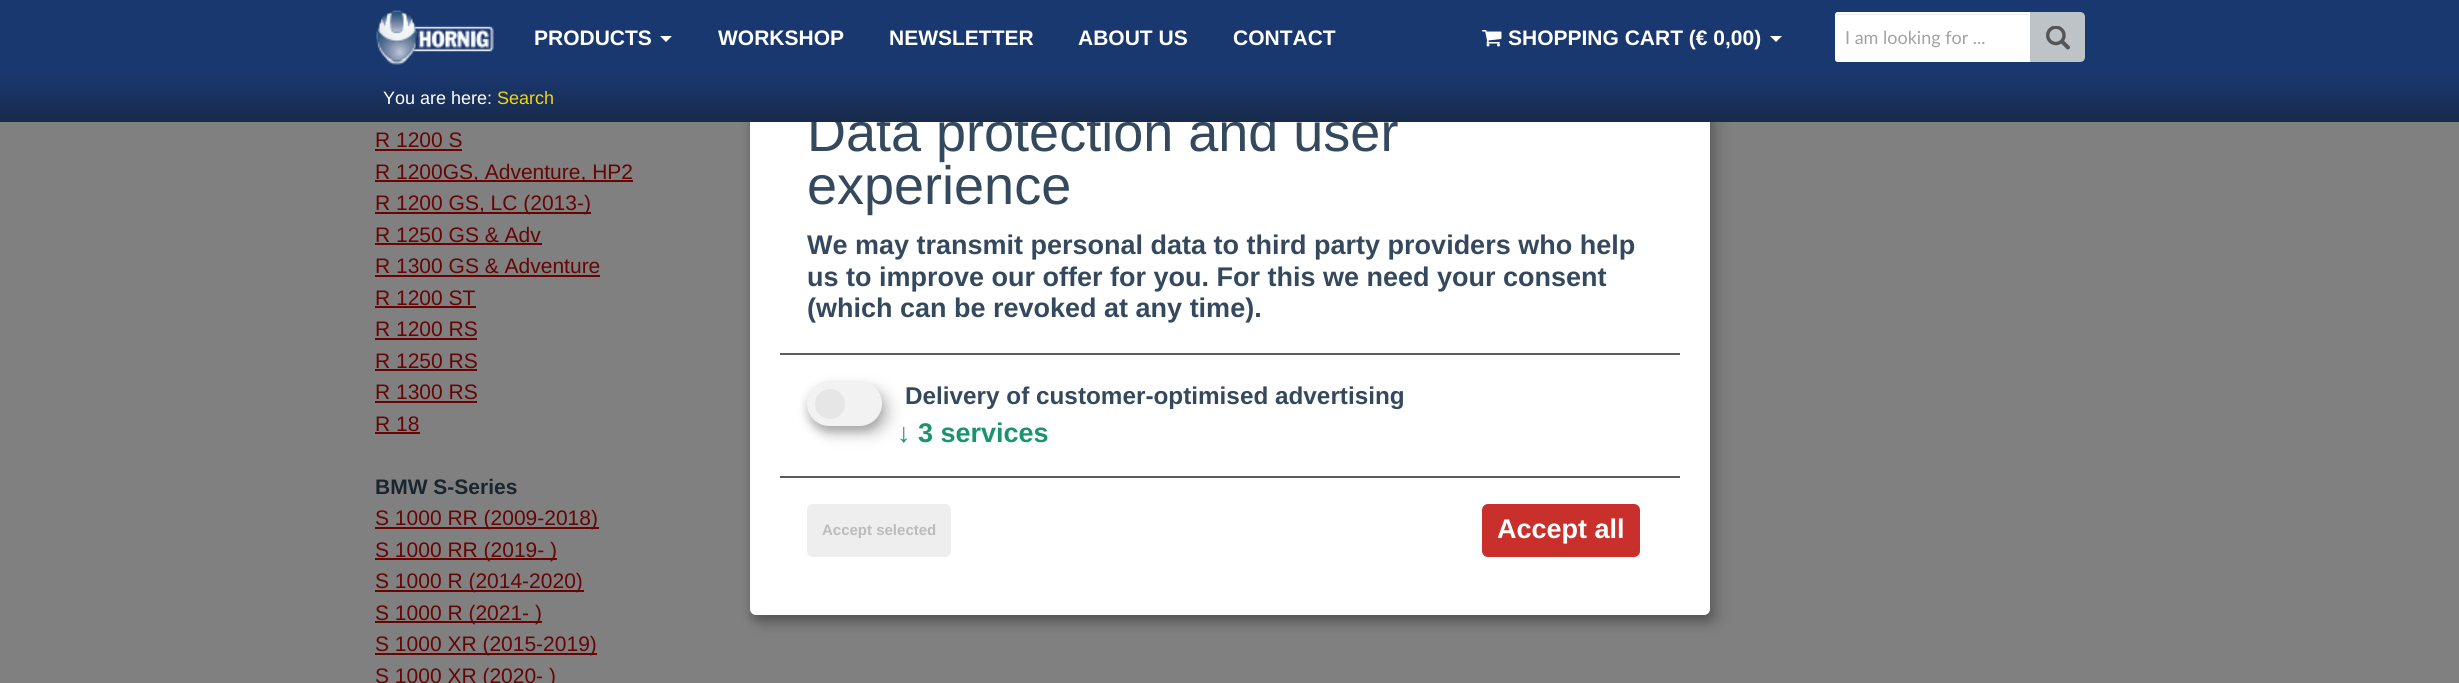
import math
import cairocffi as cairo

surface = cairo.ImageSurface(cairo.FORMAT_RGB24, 2459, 683)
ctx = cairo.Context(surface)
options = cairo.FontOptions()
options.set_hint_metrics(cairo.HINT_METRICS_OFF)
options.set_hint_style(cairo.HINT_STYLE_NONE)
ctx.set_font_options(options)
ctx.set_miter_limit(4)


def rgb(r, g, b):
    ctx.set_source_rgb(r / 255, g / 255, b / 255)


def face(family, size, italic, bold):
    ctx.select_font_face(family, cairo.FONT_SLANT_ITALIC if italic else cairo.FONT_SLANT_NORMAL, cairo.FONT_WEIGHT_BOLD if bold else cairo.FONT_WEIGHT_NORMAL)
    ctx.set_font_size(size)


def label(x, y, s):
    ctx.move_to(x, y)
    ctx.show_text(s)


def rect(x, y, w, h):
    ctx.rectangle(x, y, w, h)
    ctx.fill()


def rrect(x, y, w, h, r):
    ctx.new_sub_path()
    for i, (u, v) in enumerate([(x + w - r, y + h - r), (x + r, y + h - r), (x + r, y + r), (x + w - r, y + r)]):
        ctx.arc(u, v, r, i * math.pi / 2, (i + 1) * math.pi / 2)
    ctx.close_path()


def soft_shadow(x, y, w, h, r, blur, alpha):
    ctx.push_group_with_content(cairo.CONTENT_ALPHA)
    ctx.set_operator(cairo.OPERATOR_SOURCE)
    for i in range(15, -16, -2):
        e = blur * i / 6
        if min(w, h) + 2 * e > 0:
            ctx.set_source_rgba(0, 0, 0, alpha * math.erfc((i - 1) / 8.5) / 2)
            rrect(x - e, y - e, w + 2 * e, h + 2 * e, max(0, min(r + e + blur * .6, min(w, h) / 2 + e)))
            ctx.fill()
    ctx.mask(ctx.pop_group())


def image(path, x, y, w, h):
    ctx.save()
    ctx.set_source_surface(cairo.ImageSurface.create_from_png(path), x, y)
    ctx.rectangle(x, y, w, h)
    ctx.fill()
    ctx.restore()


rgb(128, 128, 128)
ctx.paint()
rgb(0, 0, 0)
soft_shadow(758, 77, 960, 546, 6, 7.5, 0.19)
soft_shadow(750, 75, 960, 546, 6, 4.5, 0.2)
rgb(255, 255, 255)
rrect(750, 69, 960, 546, 6)
ctx.fill()
face('Liberation Sans', 54, 0, 0)
rgb(52, 73, 94)
label(807, 151, 'Data protection and user')
gradient = cairo.LinearGradient(1230, 0, 1230, 122)
gradient.add_color_stop_rgba(0.6, 0.102, 0.22, 0.439, 1)
gradient.add_color_stop_rgba(1, 0.094, 0.165, 0.294, 1)
ctx.set_source(gradient)
rect(0, 0, 2459, 122)
image('image0.png', 376, 10, 118, 55)
face('Liberation Sans', 21, 0, 1)
rgb(255, 255, 255)
label(534, 45, 'PRODUCTS')
ctx.new_path()
ctx.move_to(660, 36)
ctx.line_to(672, 36)
ctx.line_to(666, 42)
ctx.close_path()
ctx.fill()
label(718, 45, 'WORKSHOP')
label(889, 45, 'NEWSLETTER')
label(1078, 45, 'ABOUT US')
label(1233, 45, 'CONTACT')
image('image1.png', 1482, 30, 20, 17)
label(1508, 45, 'SHOPPING CART (€ 0,00)')
ctx.new_path()
ctx.move_to(1770, 36)
ctx.line_to(1782, 36)
ctx.line_to(1776, 42)
ctx.close_path()
ctx.fill()
ctx.new_path()
ctx.move_to(1838, 12)
ctx.line_to(2030, 12)
ctx.line_to(2030, 62)
ctx.line_to(1838, 62)
ctx.curve_to(1836.5, 62, 1835, 60.5, 1835, 59)
ctx.line_to(1835, 15)
ctx.curve_to(1835, 13.5, 1836.5, 12, 1838, 12)
ctx.close_path()
ctx.fill()
rgb(236, 236, 236)
ctx.new_path()
ctx.move_to(1838, 15)
ctx.line_to(2028, 15)
ctx.line_to(2028, 14)
ctx.line_to(1837, 14)
ctx.line_to(1836, 16)
ctx.close_path()
ctx.fill()
ctx.new_path()
ctx.move_to(1838, 13)
ctx.line_to(2029, 13)
ctx.line_to(2029, 61)
ctx.line_to(1838, 61)
ctx.curve_to(1837, 61, 1836, 60, 1836, 59)
ctx.line_to(1836, 15)
ctx.curve_to(1836, 14, 1837, 13, 1838, 13)
ctx.close_path()
rgb(255, 255, 255)
ctx.stroke()
face('Lato', 18, 0, 0)
rgb(163, 163, 163)
label(1845, 44, 'I am looking for ...')
rgb(189, 195, 199)
ctx.new_path()
ctx.move_to(2030, 12)
ctx.line_to(2080, 12)
ctx.curve_to(2083, 12, 2085, 14, 2085, 17)
ctx.line_to(2085, 57)
ctx.curve_to(2085, 60, 2083, 62, 2080, 62)
ctx.line_to(2030, 62)
ctx.close_path()
ctx.fill()
image('image2.png', 2046, 26, 24, 24)
face('Liberation Sans', 18, 0, 0)
rgb(255, 255, 255)
label(383, 104, 'You are here:')
rgb(242, 213, 19)
label(497, 104, 'Search')
face('Liberation Sans', 21, 0, 0)
rgb(103, 4, 4)
label(375, 147, 'R 1200 S')
rect(375, 149, 87, 2)
rect(375, 180, 258, 2)
label(375, 179, 'R 1200GS, Adventure, HP2')
rect(375, 212, 216, 2)
label(375, 210, 'R 1200 GS, LC (2013-)')
label(375, 242, 'R 1250 GS & Adv')
rect(375, 243, 167, 2)
label(375, 273, 'R 1300 GS & Adventure')
rect(375, 275, 225, 2)
label(375, 305, 'R 1200 ST')
rect(375, 306, 101, 2)
label(375, 336, 'R 1200 RS')
rect(375, 338, 102, 2)
label(375, 368, 'R 1250 RS')
rect(375, 369, 102, 2)
label(375, 399, 'R 1300 RS')
rect(375, 401, 102, 2)
label(375, 431, 'R 18')
rect(375, 432, 45, 2)
face('Liberation Sans', 21, 0, 1)
rgb(26, 37, 47)
label(375, 494, 'BMW S-Series')
rgb(103, 4, 4)
rect(375, 527, 224, 2)
face('Liberation Sans', 21, 0, 0)
label(375, 525, 'S 1000 RR (2009-2018)')
rect(375, 558, 182, 2)
label(375, 557, 'S 1000 RR (2019- )')
rect(375, 590, 209, 2)
label(375, 588, 'S 1000 R (2014-2020)')
rect(375, 621, 167, 2)
label(375, 620, 'S 1000 R (2021- )')
rect(375, 653, 222, 2)
label(375, 651, 'S 1000 XR (2015-2019)')
label(375, 683, 'S 1000 XR (2020- )')
rgb(92, 92, 92)
rect(780, 353, 900, 2)
face('Liberation Sans', 54, 0, 0)
rgb(52, 73, 94)
label(807, 204, 'experience')
face('Liberation Sans', 27, 0, 1)
label(807, 254, 'We may transmit personal data to third party providers who help')
label(807, 286, 'us to improve our offer for you. For this we need your consent')
label(807, 317, '(which can be revoked at any time).')
rgb(0, 0, 0)
soft_shadow(815, 389, 75, 45, 22.5, 7.5, 0.19)
soft_shadow(807, 387, 75, 45, 22.5, 4.5, 0.2)
rgb(242, 242, 242)
rrect(807, 381, 75, 45, 22.5)
ctx.fill()
rgb(230, 230, 230)
ctx.arc(830, 404, 15, 0, 2 * math.pi)
ctx.fill()
face('Liberation Sans', 24.3, 0, 1)
rgb(52, 73, 94)
label(905, 404, 'Delivery of customer-optimised advertising')
face('Liberation Sans', 27, 0, 1)
rgb(26, 147, 111)
label(897, 442, '↓ 3 services')
rgb(92, 92, 92)
rect(780, 476, 900, 2)
rgb(238, 238, 238)
rrect(807, 504, 144, 53, 6)
ctx.fill()
face('Liberation Sans', 15, 0, 1)
rgb(187, 187, 187)
label(822, 535, 'Accept selected')
rgb(201, 48, 44)
rrect(1482, 504, 158, 53, 6)
ctx.fill()
face('Liberation Sans', 27, 0, 1)
rgb(255, 255, 255)
label(1497, 538, 'Accept all')
surface.write_to_png('render.png')
